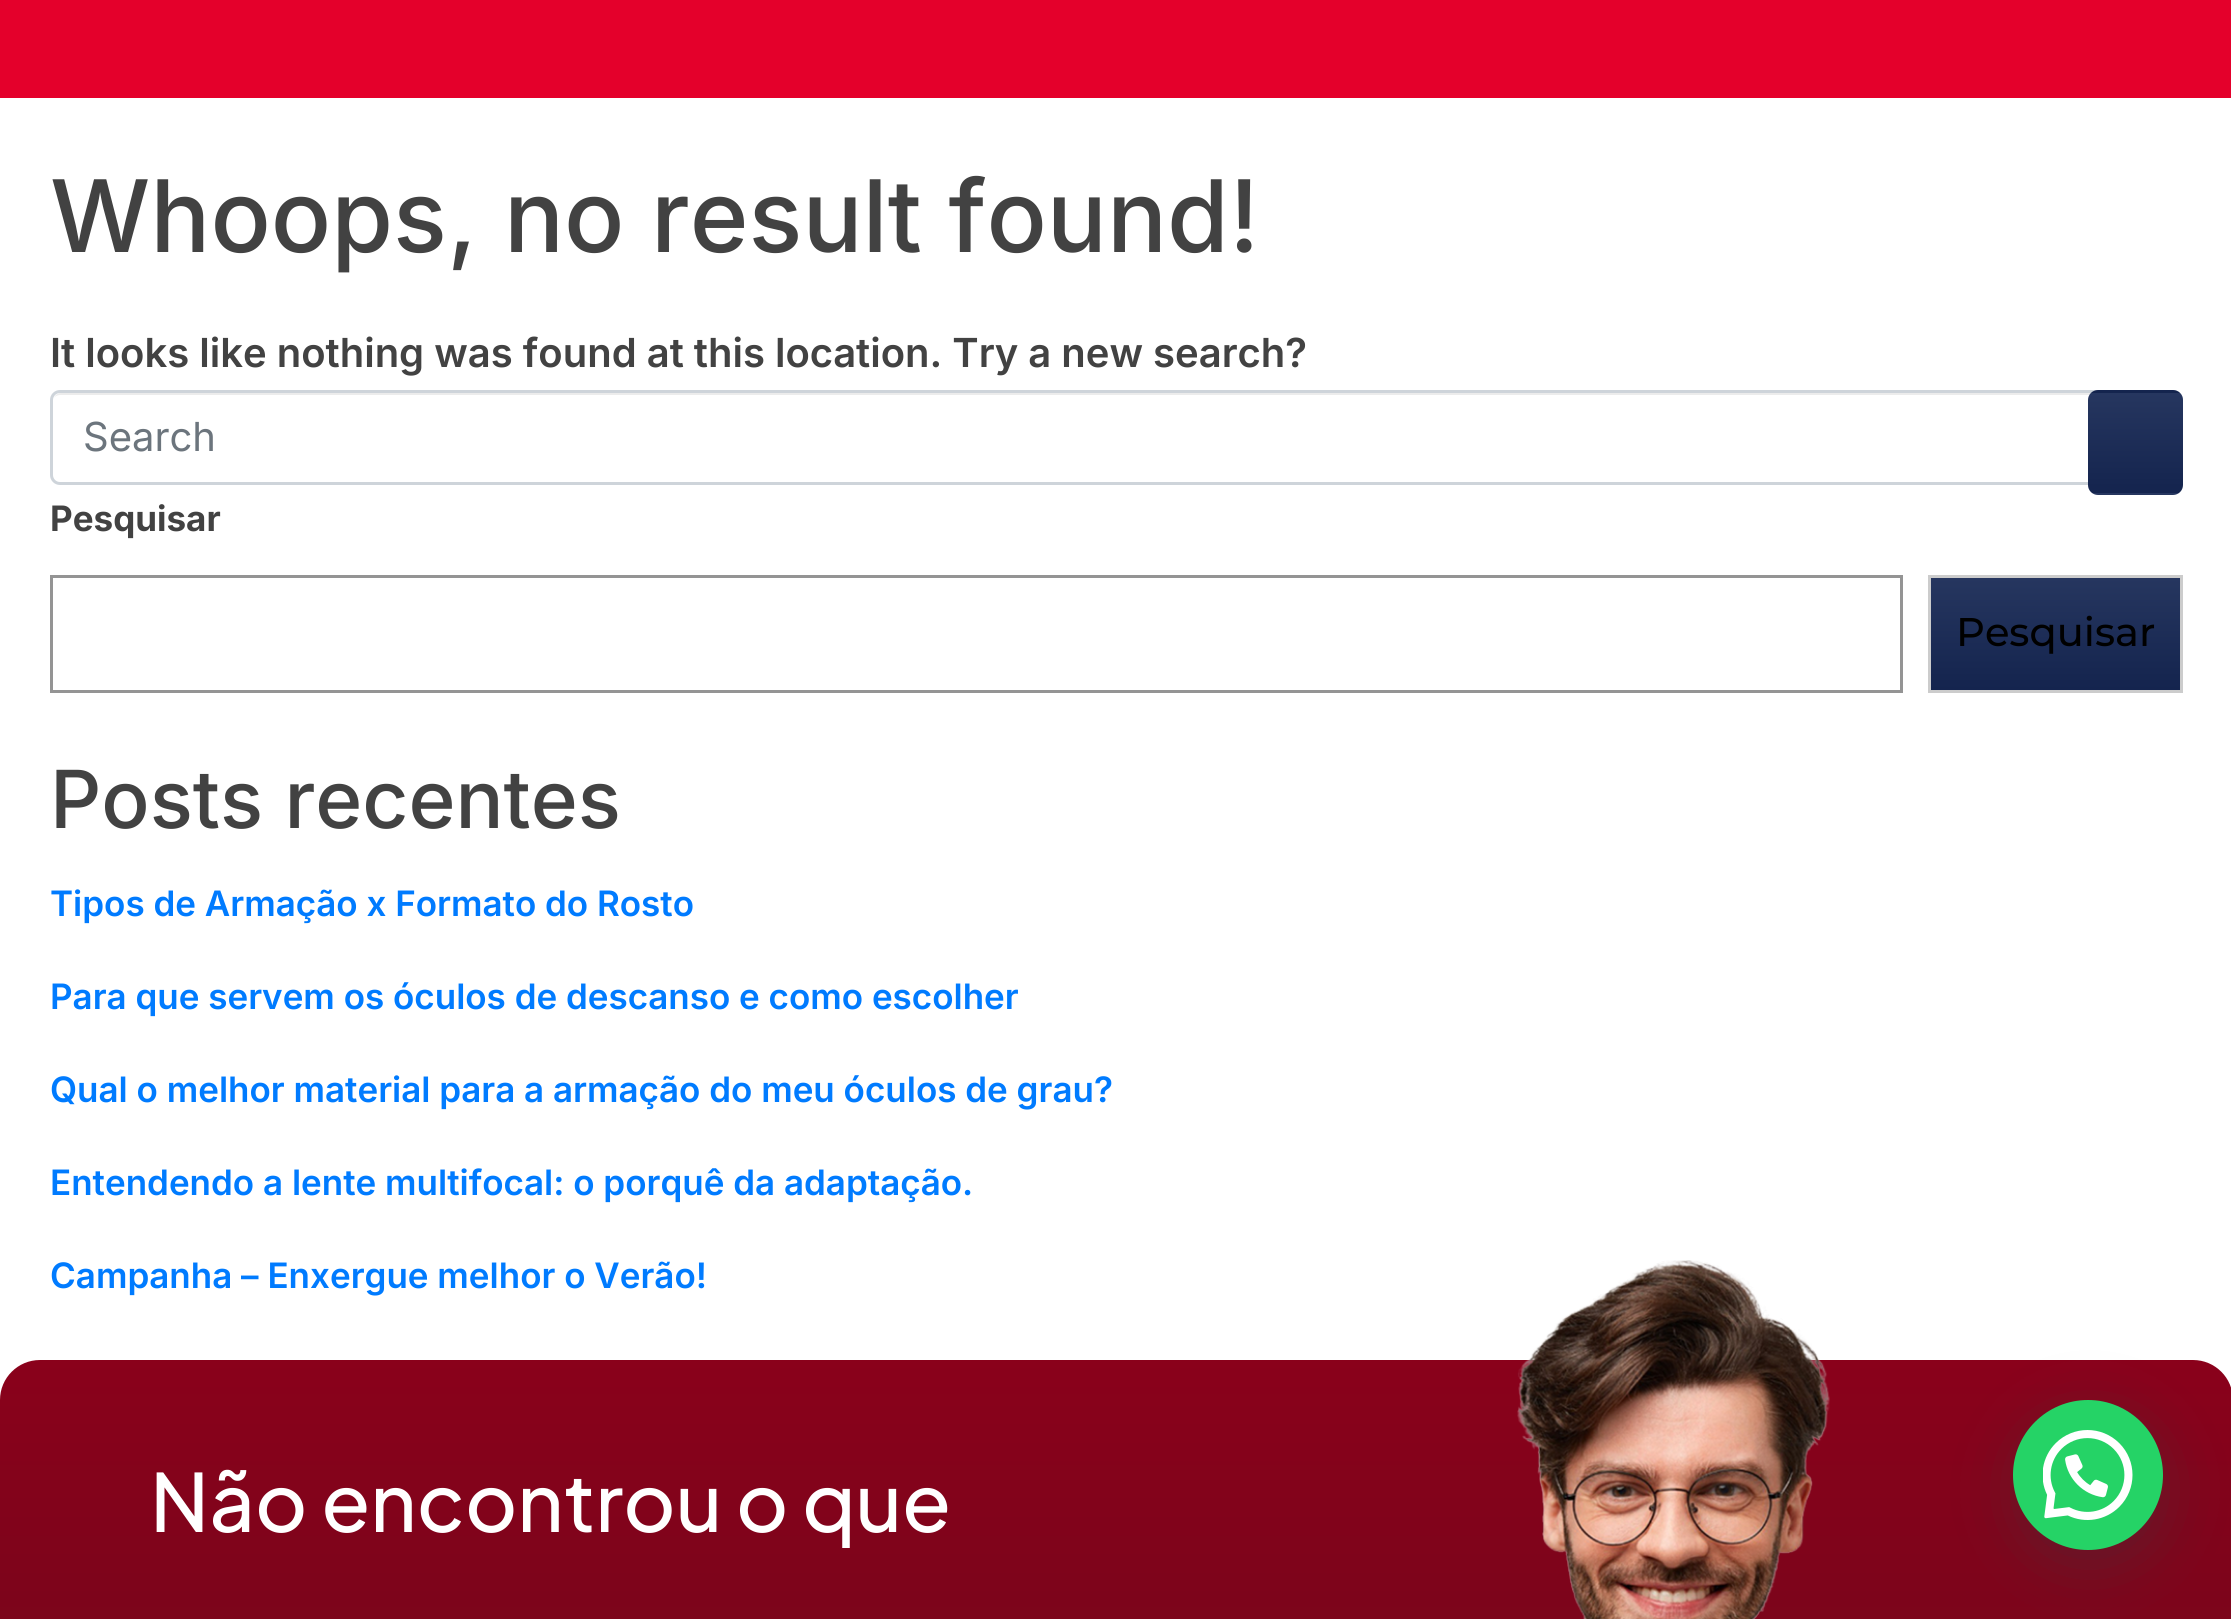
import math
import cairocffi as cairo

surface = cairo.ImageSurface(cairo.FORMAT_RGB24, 2231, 1619)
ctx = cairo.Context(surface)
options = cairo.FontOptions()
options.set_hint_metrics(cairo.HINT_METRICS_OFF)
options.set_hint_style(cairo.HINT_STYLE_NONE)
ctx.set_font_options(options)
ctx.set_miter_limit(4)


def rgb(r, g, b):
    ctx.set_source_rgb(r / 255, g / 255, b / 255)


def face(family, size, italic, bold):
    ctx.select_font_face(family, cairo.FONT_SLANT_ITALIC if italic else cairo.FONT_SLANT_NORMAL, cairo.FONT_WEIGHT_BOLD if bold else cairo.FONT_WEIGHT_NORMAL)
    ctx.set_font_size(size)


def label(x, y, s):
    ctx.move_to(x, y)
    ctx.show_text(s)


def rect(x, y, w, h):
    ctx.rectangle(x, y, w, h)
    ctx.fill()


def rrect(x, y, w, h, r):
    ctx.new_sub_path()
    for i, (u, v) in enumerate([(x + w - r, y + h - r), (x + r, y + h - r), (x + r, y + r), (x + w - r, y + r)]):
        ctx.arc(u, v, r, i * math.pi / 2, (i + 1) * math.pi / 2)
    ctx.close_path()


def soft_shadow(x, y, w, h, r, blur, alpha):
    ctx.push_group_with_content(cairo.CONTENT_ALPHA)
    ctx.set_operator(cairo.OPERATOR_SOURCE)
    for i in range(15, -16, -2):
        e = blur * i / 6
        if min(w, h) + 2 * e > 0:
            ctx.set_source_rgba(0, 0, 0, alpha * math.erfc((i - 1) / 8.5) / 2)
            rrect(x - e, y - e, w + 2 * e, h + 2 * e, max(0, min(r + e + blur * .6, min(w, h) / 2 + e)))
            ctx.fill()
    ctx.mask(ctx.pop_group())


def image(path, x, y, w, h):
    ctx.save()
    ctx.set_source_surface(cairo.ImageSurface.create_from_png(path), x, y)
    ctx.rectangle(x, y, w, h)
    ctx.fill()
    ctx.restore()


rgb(255, 255, 255)
ctx.paint()
rgb(228, 0, 43)
rect(0, 0, 2231, 98)
face('Inter Medium', 100, 0, 0)
rgb(66, 66, 66)
label(50, 252, 'Whoops, no result found!')
face('Inter SemiBold', 40, 0, 0)
label(50, 367, 'It looks like nothing was found at this location. Try a new search?')
rgb(236, 236, 236)
ctx.new_path()
ctx.move_to(60, 395)
ctx.line_to(2172, 395)
ctx.curve_to(2177, 395, 2180, 398, 2180, 402)
ctx.line_to(2180, 401)
ctx.curve_to(2180, 397, 2176, 393, 2172, 393)
ctx.line_to(61, 393)
ctx.curve_to(58, 393, 55, 395, 54, 398)
ctx.curve_to(55, 396, 58, 395, 60, 395)
ctx.close_path()
ctx.fill()
rrect(51.5, 391.5, 2130, 92, 8.5)
rgb(206, 212, 218)
ctx.set_line_width(3)
ctx.stroke()
face('Inter', 40, 0, 0)
rgb(108, 117, 125)
label(83, 451, 'Search')
ctx.save()
rrect(2088, 390, 95, 105, 10)
ctx.clip()
gradient = cairo.LinearGradient(2135, 293, 2135, 393)
gradient.add_color_stop_rgba(0, 0.149, 0.212, 0.373, 1)
gradient.add_color_stop_rgba(1, 0.078, 0.141, 0.306, 1)
ctx.set_source(gradient)
rect(2088, 390, 95, 3)
gradient = cairo.LinearGradient(2135, 393, 2135, 493)
gradient.add_color_stop_rgba(0, 0.149, 0.212, 0.373, 1)
gradient.add_color_stop_rgba(1, 0.078, 0.141, 0.306, 1)
ctx.set_source(gradient)
rect(2088, 393, 95, 100)
gradient = cairo.LinearGradient(2135, 493, 2135, 593)
gradient.add_color_stop_rgba(0, 0.149, 0.212, 0.373, 1)
gradient.add_color_stop_rgba(1, 0.078, 0.141, 0.306, 1)
ctx.set_source(gradient)
rect(2088, 493, 95, 2)
ctx.restore()
face('Inter', 35, 0, 1)
rgb(66, 66, 66)
label(50, 531, 'Pesquisar')
ctx.rectangle(51.5, 576.5, 1850, 115)
rgb(148, 148, 148)
ctx.stroke()
gradient = cairo.LinearGradient(2055, 578, 2055, 690)
gradient.add_color_stop_rgba(0, 0.149, 0.212, 0.373, 1)
gradient.add_color_stop_rgba(1, 0.078, 0.141, 0.306, 1)
ctx.set_source(gradient)
rect(1931, 578, 249, 112)
ctx.rectangle(1929.5, 576.5, 252, 115)
rgb(204, 204, 204)
ctx.stroke()
face('Montserrat Medium', 40, 0, 0)
rgb(0, 0, 0)
label(1956, 646, 'Pesquisar')
face('Inter Medium', 80, 0, 0)
rgb(66, 66, 66)
label(50, 828, 'Posts recentes')
face('Inter SemiBold', 35, 0, 0)
rgb(0, 123, 255)
label(50, 916, 'Tipos de Armação x Formato do Rosto')
label(50, 1009, 'Para que servem os óculos de descanso e como escolher')
label(50, 1102, 'Qual o melhor material para a armação do meu óculos de grau?')
label(50, 1195, 'Entendendo a lente multifocal: o porquê da adaptação.')
label(50, 1288, 'Campanha – Enxergue melhor o Verão!')
gradient = cairo.LinearGradient(1116, 1360, 1116, 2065)
gradient.add_color_stop_rgba(0, 0.541, 0.004, 0.106, 1)
gradient.add_color_stop_rgba(1, 0.392, 0.043, 0.11, 1)
ctx.set_source(gradient)
rrect(0, 1360, 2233, 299, 40)
ctx.fill()
face('Plus Jakarta Sans Medium', 80, 0, 0)
rgb(255, 255, 255)
label(150, 1532, 'Não encontrou o que')
image('image0.png', 1517, 1260, 313, 359)
rgb(7, 94, 84)
soft_shadow(2015, 1415, 150, 150, 75, 30, 0.24)
rgb(37, 211, 102)
ctx.arc(2088, 1475, 75, 0, 2 * math.pi)
ctx.fill()
image('image1.png', 2043, 1430, 90, 90)
surface.write_to_png('render.png')
